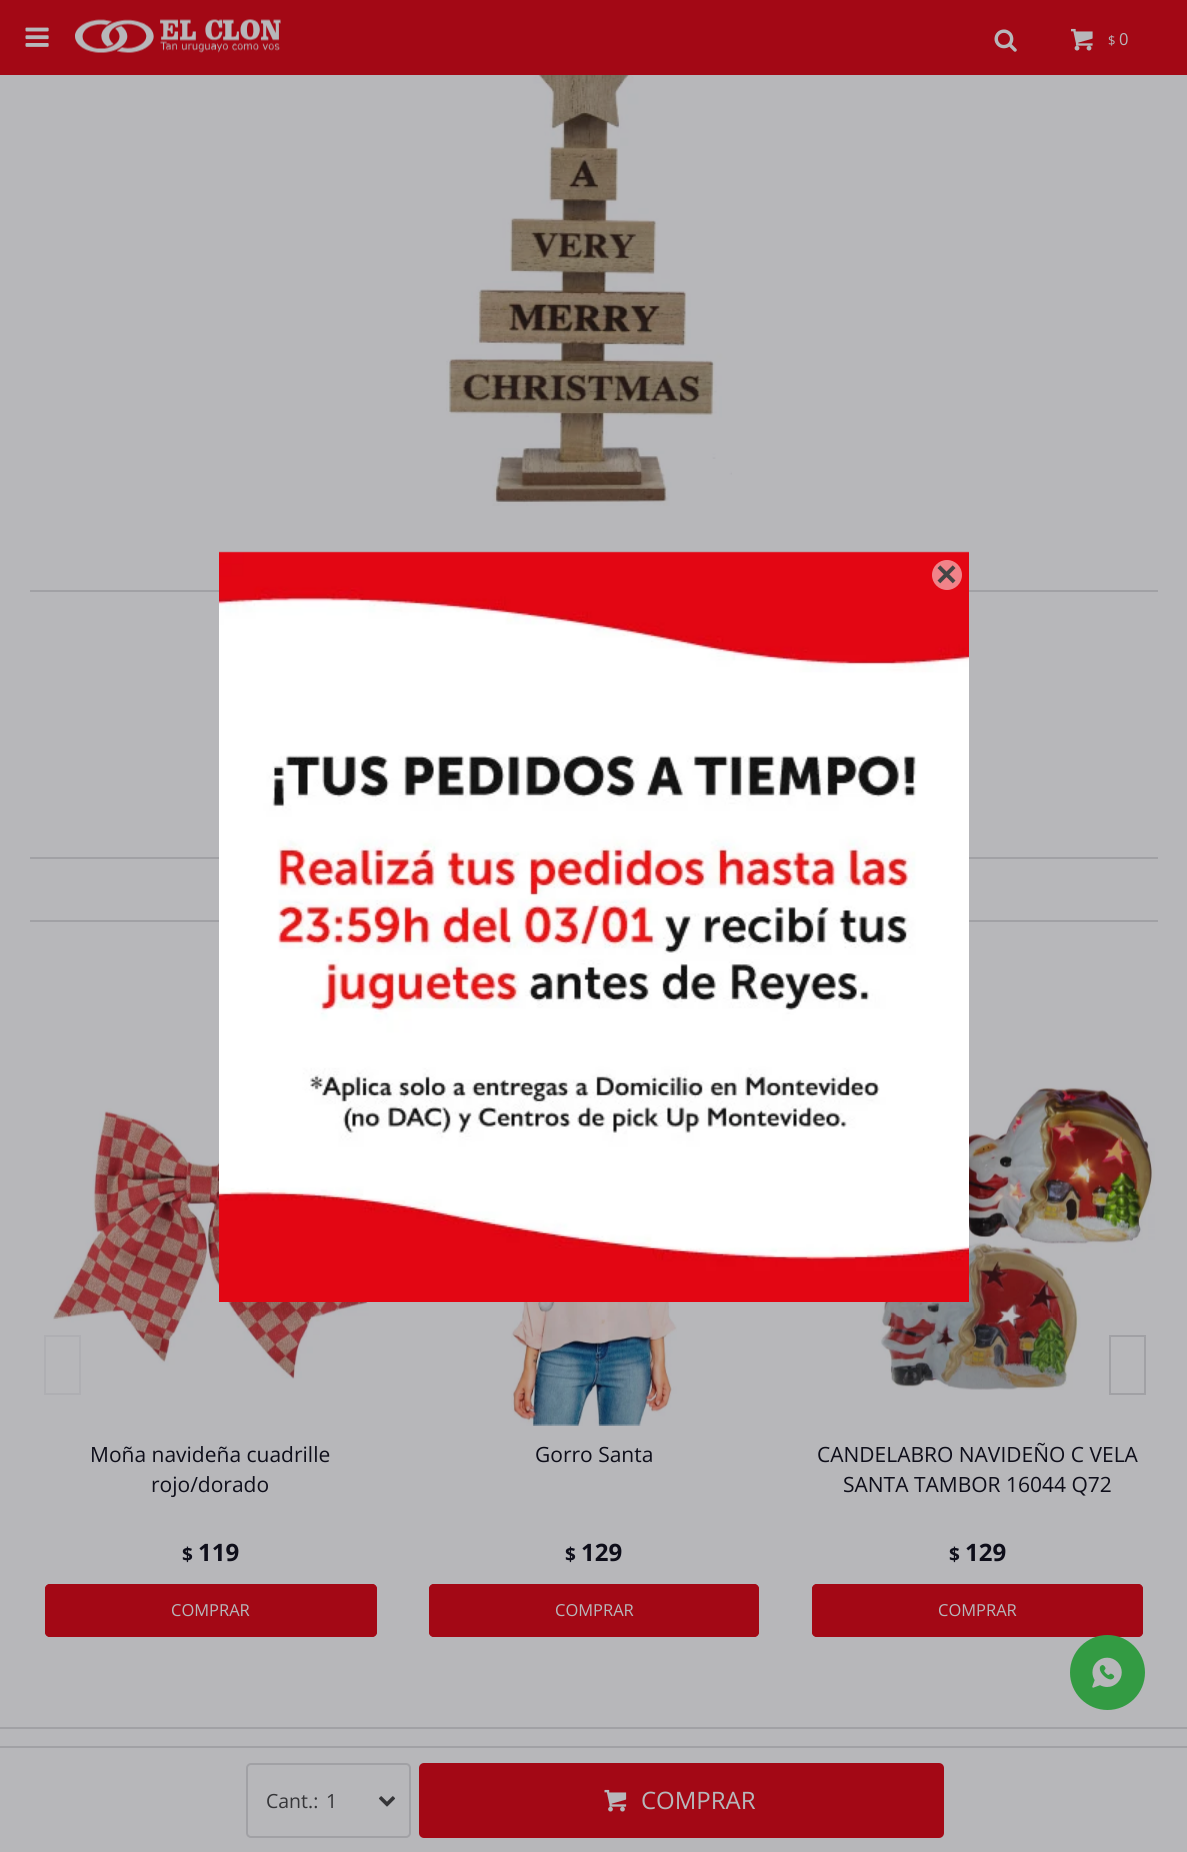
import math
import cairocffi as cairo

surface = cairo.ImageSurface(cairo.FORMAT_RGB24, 1187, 1852)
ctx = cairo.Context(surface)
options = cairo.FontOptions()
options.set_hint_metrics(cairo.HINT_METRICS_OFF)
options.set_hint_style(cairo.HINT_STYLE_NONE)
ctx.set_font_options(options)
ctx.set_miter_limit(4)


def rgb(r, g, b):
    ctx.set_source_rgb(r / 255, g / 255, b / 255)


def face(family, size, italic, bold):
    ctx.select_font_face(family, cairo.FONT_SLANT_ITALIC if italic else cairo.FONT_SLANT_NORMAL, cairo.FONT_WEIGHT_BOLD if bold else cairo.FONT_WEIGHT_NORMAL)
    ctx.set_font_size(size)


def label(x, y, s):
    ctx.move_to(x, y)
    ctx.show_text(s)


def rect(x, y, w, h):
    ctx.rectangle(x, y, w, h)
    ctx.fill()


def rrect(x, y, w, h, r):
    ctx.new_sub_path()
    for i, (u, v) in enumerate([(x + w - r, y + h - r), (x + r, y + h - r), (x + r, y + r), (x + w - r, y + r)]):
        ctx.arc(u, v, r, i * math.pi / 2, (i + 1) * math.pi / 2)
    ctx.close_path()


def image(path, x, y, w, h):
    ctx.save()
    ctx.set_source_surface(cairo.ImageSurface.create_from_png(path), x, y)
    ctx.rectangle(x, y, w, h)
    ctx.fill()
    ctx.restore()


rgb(183, 183, 186)
ctx.paint()
rgb(163, 8, 21)
rect(0, 0, 1187, 75)
image('image0.png', 25, 27, 24, 20)
image('image1.png', 75, 19, 206, 34)
image('image2.png', 994, 29, 23, 23)
image('image3.png', 1071, 28, 22, 23)
face('Open Sans', 13, 0, 0)
rgb(183, 183, 186)
label(1108, 45, '$')
face('Open Sans', 16.5, 0, 0)
label(1119, 45, '0')
image('image4.png', 53, 1108, 316, 271)
ctx.rectangle(45, 1336, 35, 58)
rgb(175, 175, 179)
ctx.stroke()
image('image6.png', 806, 1087, 349, 303)
ctx.rectangle(1110, 1336, 35, 58)
rgb(161, 161, 165)
ctx.stroke()
face('Open Sans', 21, 0, 0)
rgb(14, 14, 26)
label(90, 1462, 'Moña navideña cuadrille')
label(151, 1492, 'rojo/dorado')
face('Open Sans', 19, 0, 1)
label(182, 1561, '$')
face('Open Sans', 24, 0, 1)
label(198, 1561, '119')
rgb(163, 8, 21)
rrect(45, 1584, 332, 53, 5)
ctx.fill()
rrect(46, 1585, 330, 51, 4)
ctx.stroke()
face('Open Sans', 16.5, 0, 0)
rgb(183, 183, 186)
label(171, 1616, 'COMPRAR')
image('image5.png', 511, 1302, 166, 124)
face('Open Sans', 21, 0, 0)
rgb(14, 14, 26)
label(535, 1462, 'Gorro Santa')
face('Open Sans', 19, 0, 1)
label(565, 1561, '$')
face('Open Sans', 24, 0, 1)
label(581, 1561, '129')
rgb(163, 8, 21)
rrect(429, 1584, 330, 53, 5)
ctx.fill()
rrect(430, 1585, 328, 51, 4)
ctx.stroke()
face('Open Sans', 16.5, 0, 0)
rgb(183, 183, 186)
label(555, 1616, 'COMPRAR')
face('Open Sans', 21, 0, 0)
rgb(14, 14, 26)
label(817, 1462, 'CANDELABRO NAVIDEÑO C VELA')
label(843, 1492, 'SANTA TAMBOR 16044 Q72')
face('Open Sans', 19, 0, 1)
label(949, 1561, '$')
face('Open Sans', 24, 0, 1)
label(965, 1561, '129')
rgb(163, 8, 21)
rrect(812, 1584, 331, 53, 5)
ctx.fill()
rrect(813, 1585, 329, 51, 4)
ctx.stroke()
face('Open Sans', 16.5, 0, 0)
rgb(183, 183, 186)
label(938, 1616, 'COMPRAR')
image('image7.png', 446, 75, 286, 431)
rgb(161, 161, 165)
rect(30, 590, 1128, 2)
rect(30, 857, 1128, 2)
rect(30, 920, 1128, 2)
rect(0, 1746, 1187, 2)
image('image8.png', 378, 1796, 18, 11)
rrect(247, 1764, 163, 73, 4)
ctx.stroke()
face('Open Sans', 19.5, 0, 0)
rgb(53, 53, 56)
label(266, 1808, 'Cant.:')
label(326, 1808, '1')
rgb(163, 8, 21)
rrect(419, 1763, 525, 75, 5)
ctx.fill()
image('image9.png', 604, 1789, 23, 23)
face('Open Sans', 24, 0, 0)
rgb(183, 183, 186)
label(641, 1809, 'COMPRAR')
rgb(161, 161, 165)
rect(0, 1727, 1187, 2)
image('image10.png', 219, 551, 750, 751)
rgb(241, 131, 137)
ctx.arc(947, 575, 15, 0, 2 * math.pi)
ctx.fill()
image('image11.png', 937, 565, 19, 19)
rgb(51, 155, 67)
ctx.arc(1107.5, 1672.5, 37.5, 0, 2 * math.pi)
ctx.fill()
image('image12.png', 1092, 1657, 30, 31)
surface.write_to_png('render.png')
